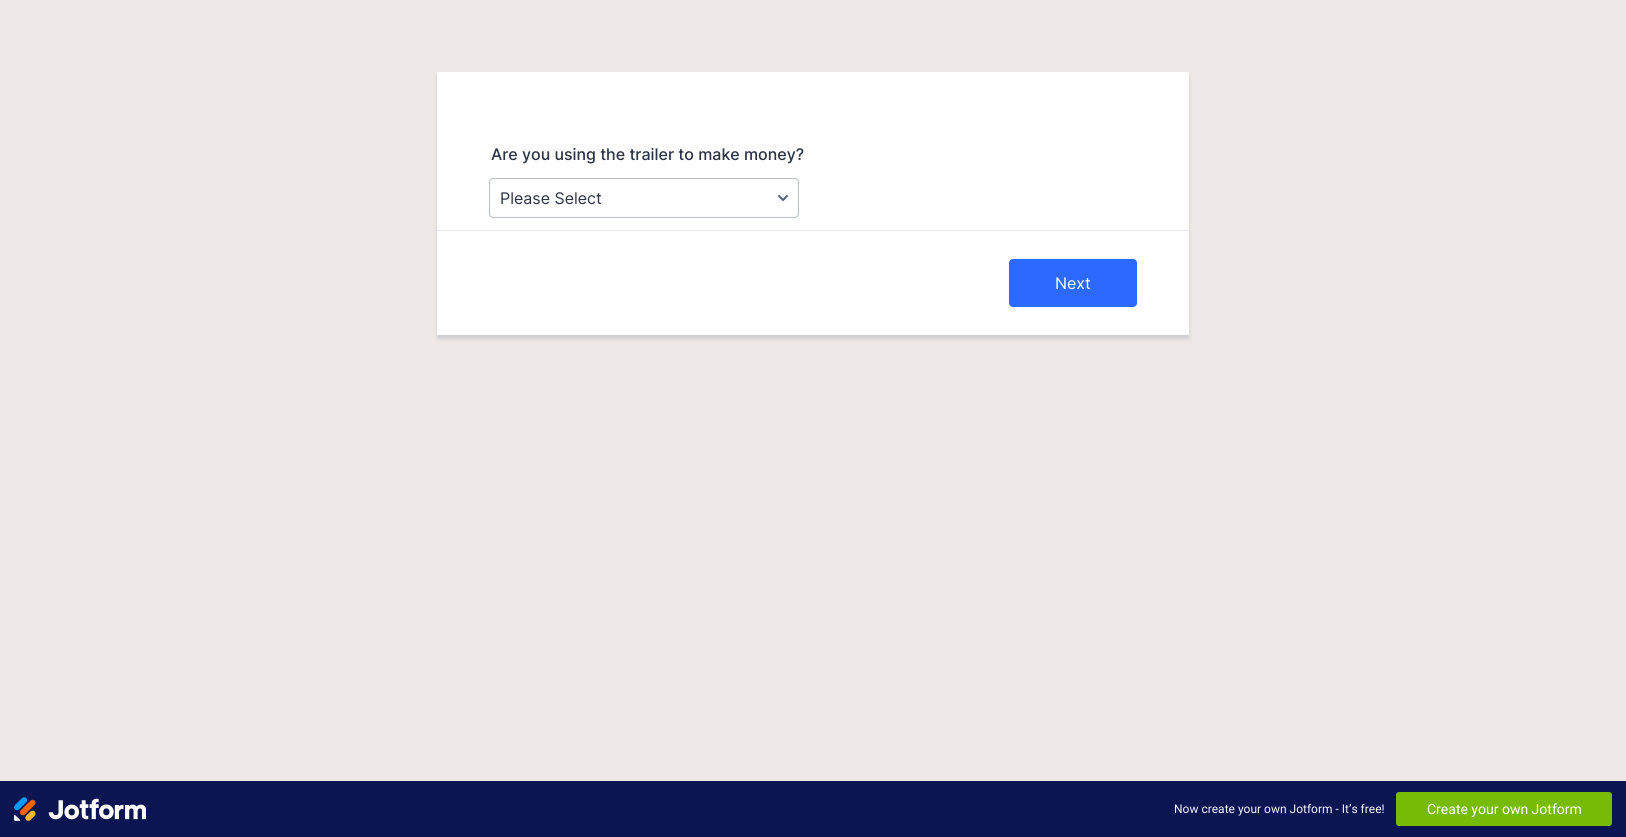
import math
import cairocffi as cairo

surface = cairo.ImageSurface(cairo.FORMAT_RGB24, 1626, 837)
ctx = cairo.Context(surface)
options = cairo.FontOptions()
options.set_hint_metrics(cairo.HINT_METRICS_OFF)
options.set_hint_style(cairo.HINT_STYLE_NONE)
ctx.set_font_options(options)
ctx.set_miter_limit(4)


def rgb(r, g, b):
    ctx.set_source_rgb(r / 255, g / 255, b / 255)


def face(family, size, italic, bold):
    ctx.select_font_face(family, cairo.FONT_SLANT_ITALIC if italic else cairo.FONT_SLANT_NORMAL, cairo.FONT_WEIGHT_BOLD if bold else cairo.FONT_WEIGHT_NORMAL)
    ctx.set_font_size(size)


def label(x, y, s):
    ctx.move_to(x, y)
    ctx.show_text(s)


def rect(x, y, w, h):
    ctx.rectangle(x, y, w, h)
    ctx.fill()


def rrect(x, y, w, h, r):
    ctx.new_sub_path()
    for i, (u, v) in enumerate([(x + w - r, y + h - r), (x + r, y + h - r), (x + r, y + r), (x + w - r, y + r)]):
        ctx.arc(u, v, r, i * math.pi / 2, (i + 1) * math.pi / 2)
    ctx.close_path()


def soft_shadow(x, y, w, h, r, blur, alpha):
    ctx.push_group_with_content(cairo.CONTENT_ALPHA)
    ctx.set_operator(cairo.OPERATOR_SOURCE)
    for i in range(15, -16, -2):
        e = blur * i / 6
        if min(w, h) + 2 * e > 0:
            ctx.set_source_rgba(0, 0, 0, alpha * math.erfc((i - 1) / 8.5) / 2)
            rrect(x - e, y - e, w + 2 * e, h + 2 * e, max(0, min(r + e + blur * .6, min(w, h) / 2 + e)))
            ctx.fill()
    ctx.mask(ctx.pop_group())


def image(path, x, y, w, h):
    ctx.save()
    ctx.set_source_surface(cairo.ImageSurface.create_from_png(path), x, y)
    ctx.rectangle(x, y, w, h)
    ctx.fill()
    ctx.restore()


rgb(238, 233, 230)
ctx.paint()
rgb(87, 100, 126)
soft_shadow(437, 76, 752, 263, 0, 2, 0.21)
rgb(255, 255, 255)
rect(437, 72, 752, 263)
face('Inter Medium', 16, 0, 0)
rgb(44, 51, 69)
label(491, 160, 'Are you using the trailer to make money?')
ctx.new_path()
ctx.move_to(779, 196)
ctx.line_to(783, 200)
ctx.line_to(787, 196)
rgb(87, 100, 126)
ctx.set_line_cap(cairo.LINE_CAP_ROUND)
ctx.set_line_join(cairo.LINE_JOIN_ROUND)
ctx.stroke()
rrect(489.5, 178.5, 309, 39, 3.5)
rgb(184, 189, 201)
ctx.set_line_width(1)
ctx.set_line_cap(cairo.LINE_CAP_BUTT)
ctx.set_line_join(cairo.LINE_JOIN_MITER)
ctx.stroke()
face('Inter', 16, 0, 0)
rgb(44, 51, 69)
label(500, 204, 'Please Select')
rgb(229, 231, 242)
rect(437, 230, 752, 1)
rgb(46, 105, 255)
rrect(1009.5, 259.5, 127, 47, 3.5)
ctx.fill_preserve()
ctx.stroke()
rgb(255, 255, 255)
label(1055, 289, 'Next')
rgb(10, 21, 81)
rect(0, 781, 1626, 56)
image('image0.png', 14, 797, 132, 24)
face('Roboto', 12, 0, 0)
rgb(243, 243, 254)
label(1174, 813, 'Now create your own Jotform - It’s free!')
rgb(120, 187, 7)
rrect(1396, 792, 216, 34, 3)
ctx.fill()
face('Roboto', 14, 0, 0)
rgb(255, 255, 255)
label(1427, 814, 'Create your own Jotform')
surface.write_to_png('render.png')
